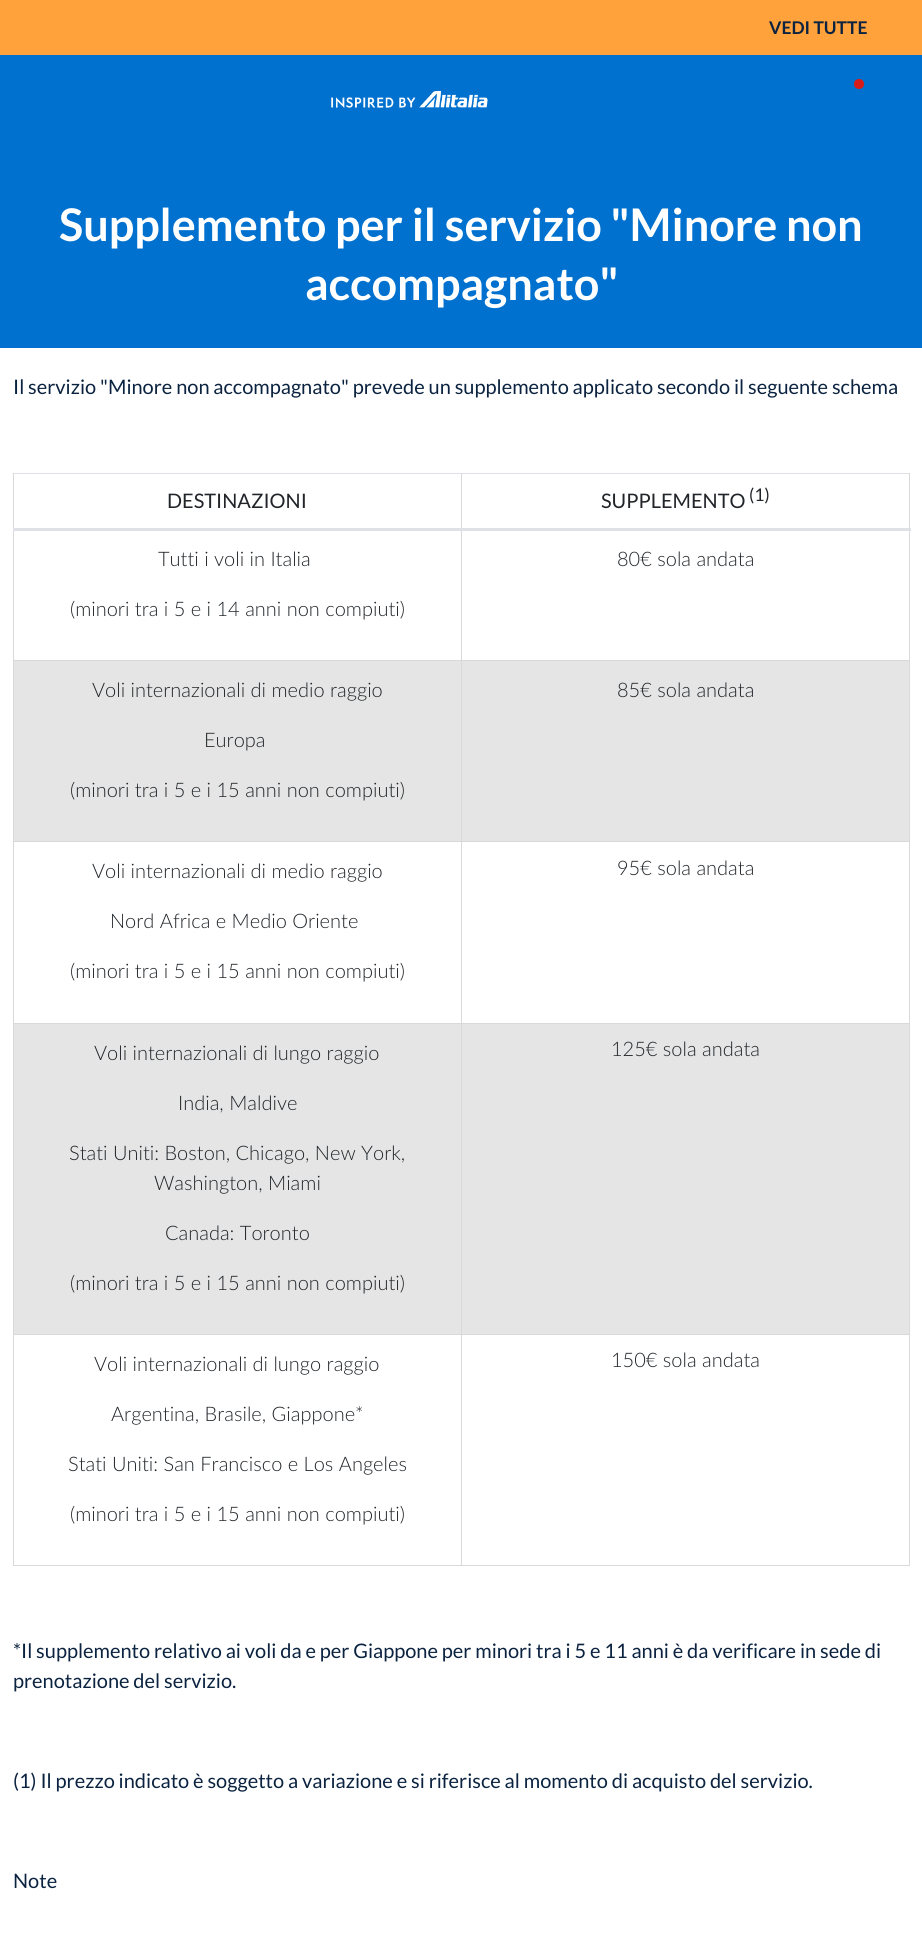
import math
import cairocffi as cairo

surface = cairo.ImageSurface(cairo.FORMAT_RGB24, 922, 1951)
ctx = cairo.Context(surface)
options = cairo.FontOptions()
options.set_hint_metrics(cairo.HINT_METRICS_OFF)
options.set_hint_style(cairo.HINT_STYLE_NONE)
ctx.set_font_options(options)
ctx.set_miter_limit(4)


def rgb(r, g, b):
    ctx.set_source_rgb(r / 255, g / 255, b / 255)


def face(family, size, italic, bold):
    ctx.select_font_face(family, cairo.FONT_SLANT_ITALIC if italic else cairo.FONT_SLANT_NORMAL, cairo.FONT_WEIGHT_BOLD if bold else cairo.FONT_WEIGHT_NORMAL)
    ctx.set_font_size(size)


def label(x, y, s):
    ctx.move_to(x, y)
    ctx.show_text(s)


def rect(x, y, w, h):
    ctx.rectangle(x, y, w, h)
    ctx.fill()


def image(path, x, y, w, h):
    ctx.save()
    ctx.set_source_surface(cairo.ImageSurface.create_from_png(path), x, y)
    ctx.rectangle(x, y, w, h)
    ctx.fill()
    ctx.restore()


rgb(255, 255, 255)
ctx.paint()
rgb(255, 162, 59)
rect(0, 0, 922, 55)
face('Lato', 17.5, 0, 1)
rgb(11, 35, 64)
label(769, 34, 'VEDI TUTTE')
rgb(1, 113, 207)
rect(0, 55, 922, 293)
rgb(215, 27, 25)
ctx.new_path()
ctx.arc(859, 84, 5, 0, 2 * math.pi)
ctx.fill()
image('image0.png', 331, 91, 157, 17)
face('Lato', 45, 0, 1)
rgb(255, 255, 255)
label(59, 241, 'Supplemento per il servizio "Minore non')
label(305, 300, 'accompagnato"')
face('Lato', 20, 0, 0)
rgb(11, 35, 64)
label(13, 394, 'Il servizio "Minore non accompagnato" prevede un supplemento applicato secondo il seguente schema')
rgb(222, 226, 230)
rect(13, 473, 897, 1)
rgb(229, 229, 229)
rect(14, 661, 895, 180)
rect(14, 1024, 895, 310)
rgb(217, 217, 217)
rect(909, 528, 1, 1038)
rect(461, 1565, 449, 1)
rect(461, 1334, 1, 232)
rect(461, 1334, 449, 1)
rect(461, 1023, 1, 312)
rect(461, 1023, 449, 1)
rect(461, 841, 1, 183)
rect(461, 841, 449, 1)
rect(461, 660, 1, 183)
rect(461, 660, 449, 1)
rect(461, 528, 1, 133)
rect(461, 473, 1, 56)
rect(13, 1565, 450, 1)
rect(13, 1334, 1, 232)
rect(13, 1334, 450, 1)
rect(13, 1023, 1, 312)
rect(13, 1023, 450, 1)
rect(13, 841, 1, 183)
rect(13, 841, 450, 1)
rect(13, 660, 1, 183)
rect(13, 660, 450, 1)
rect(13, 528, 1, 133)
rect(13, 473, 1, 56)
rgb(33, 37, 41)
label(167, 508, 'DESTINAZIONI')
rgb(217, 217, 217)
rect(909, 473, 1, 56)
rgb(222, 226, 230)
rect(13, 528, 898, 3)
rgb(33, 37, 41)
label(601, 508, 'SUPPLEMENTO')
face('Lato', 17.5, 0, 0)
label(749, 501, '(1)')
face('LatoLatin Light', 20, 0, 0)
label(158, 566, 'Tutti i voli in Italia')
label(70, 616, '(minori tra i 5 e i 14 anni non compiuti)')
label(617, 566, '80€ sola andata')
label(92, 697, 'Voli internazionali di medio raggio')
label(204, 747, 'Europa')
label(70, 797, '(minori tra i 5 e i 15 anni non compiuti)')
label(617, 697, '85€ sola andata')
label(92, 878, 'Voli internazionali di medio raggio')
label(110, 928, 'Nord Africa e Medio Oriente')
label(70, 978, '(minori tra i 5 e i 15 anni non compiuti)')
label(617, 875, '95€ sola andata')
label(94, 1060, 'Voli internazionali di lungo raggio')
label(178, 1110, 'India, Maldive')
label(69, 1160, 'Stati Uniti: Boston, Chicago, New York,')
label(154, 1190, 'Washington, Miami')
label(165, 1240, 'Canada: Toronto')
label(70, 1290, '(minori tra i 5 e i 15 anni non compiuti)')
label(611, 1056, '125€ sola andata')
label(94, 1371, 'Voli internazionali di lungo raggio')
label(111, 1421, 'Argentina, Brasile, Giappone*')
label(68, 1471, 'Stati Uniti: San Francisco e Los Angeles')
label(70, 1521, '(minori tra i 5 e i 15 anni non compiuti)')
label(611, 1367, '150€ sola andata')
face('Lato', 20, 0, 0)
rgb(11, 35, 64)
label(13, 1658, '*Il supplemento relativo ai voli da e per Giappone per minori tra i 5 e 11 anni è da verificare in sede di')
label(13, 1688, 'prenotazione del servizio.')
label(13, 1788, '(1) Il prezzo indicato è soggetto a variazione e si riferisce al momento di acquisto del servizio.')
label(13, 1888, 'Note')
surface.write_to_png('render.png')
